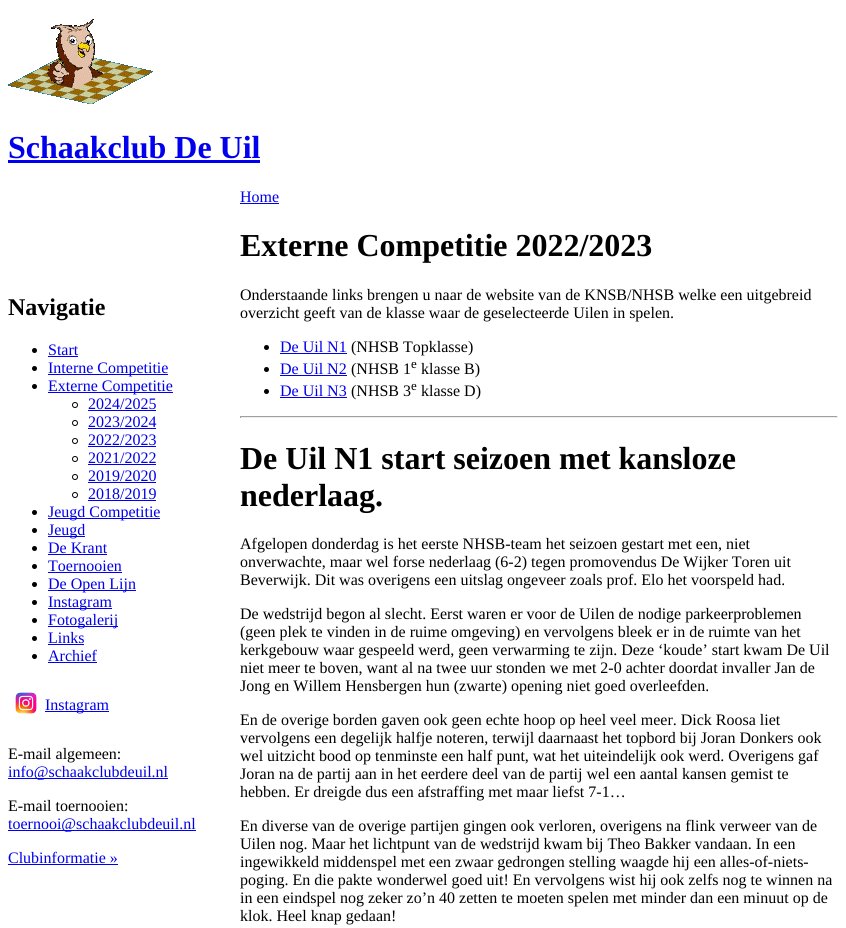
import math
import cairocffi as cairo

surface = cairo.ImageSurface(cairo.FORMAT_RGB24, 846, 928)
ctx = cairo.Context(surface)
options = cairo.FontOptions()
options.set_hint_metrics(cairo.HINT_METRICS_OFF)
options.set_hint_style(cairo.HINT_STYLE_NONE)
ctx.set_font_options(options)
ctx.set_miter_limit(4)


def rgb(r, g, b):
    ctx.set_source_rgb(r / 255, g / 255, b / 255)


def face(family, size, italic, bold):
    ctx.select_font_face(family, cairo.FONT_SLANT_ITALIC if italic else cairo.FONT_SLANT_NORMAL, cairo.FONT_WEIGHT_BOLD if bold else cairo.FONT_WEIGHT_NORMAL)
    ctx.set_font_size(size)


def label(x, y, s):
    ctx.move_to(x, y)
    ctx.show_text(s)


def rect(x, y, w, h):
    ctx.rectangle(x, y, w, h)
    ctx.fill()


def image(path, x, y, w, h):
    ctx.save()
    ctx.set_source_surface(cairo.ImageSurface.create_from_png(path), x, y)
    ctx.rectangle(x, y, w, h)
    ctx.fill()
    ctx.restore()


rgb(255, 255, 255)
ctx.paint()
image('image0.png', 8, 19, 145, 85)
face('Liberation Serif', 32, 0, 1)
rgb(0, 0, 238)
label(8, 158, 'Schaakclub De Uil')
rect(8, 160, 252, 3)
face('Liberation Serif', 24, 0, 1)
rgb(0, 0, 0)
label(8, 315, 'Navigatie')
ctx.new_path()
ctx.arc(34.5, 350.5, 2.5, 0, 2 * math.pi)
ctx.fill()
face('Liberation Serif', 16, 0, 0)
rgb(0, 0, 238)
label(48, 355, 'Start')
rect(48, 356, 30, 1)
rgb(0, 0, 0)
ctx.new_path()
ctx.arc(34.5, 368.5, 2.5, 0, 2 * math.pi)
ctx.fill()
rgb(0, 0, 238)
rect(48, 374, 120, 1)
label(48, 373, 'Interne Competitie')
rgb(0, 0, 0)
ctx.new_path()
ctx.arc(34.5, 386.5, 2.5, 0, 2 * math.pi)
ctx.fill()
rgb(0, 0, 238)
rect(48, 392, 125, 1)
label(48, 391, 'Externe Competitie')
ctx.new_path()
ctx.arc(75, 405, 2.5, 0, 2 * math.pi)
rgb(0, 0, 0)
ctx.set_line_width(1)
ctx.stroke()
rgb(0, 0, 238)
label(88, 409, '2024/2025')
rect(88, 410, 68, 1)
ctx.new_path()
ctx.arc(75, 423, 2.5, 0, 2 * math.pi)
rgb(0, 0, 0)
ctx.stroke()
rgb(0, 0, 238)
label(88, 427, '2023/2024')
rect(88, 428, 68, 1)
ctx.new_path()
ctx.arc(75, 441, 2.5, 0, 2 * math.pi)
rgb(0, 0, 0)
ctx.stroke()
rgb(0, 0, 238)
label(88, 445, '2022/2023')
rect(88, 446, 68, 1)
ctx.new_path()
ctx.arc(75, 459, 2.5, 0, 2 * math.pi)
rgb(0, 0, 0)
ctx.stroke()
rgb(0, 0, 238)
label(88, 463, '2021/2022')
rect(88, 464, 68, 1)
ctx.new_path()
ctx.arc(75, 477, 2.5, 0, 2 * math.pi)
rgb(0, 0, 0)
ctx.stroke()
rgb(0, 0, 238)
label(88, 481, '2019/2020')
rect(88, 482, 68, 1)
ctx.new_path()
ctx.arc(75, 495, 2.5, 0, 2 * math.pi)
rgb(0, 0, 0)
ctx.stroke()
rgb(0, 0, 238)
label(88, 499, '2018/2019')
rect(88, 500, 68, 1)
rgb(0, 0, 0)
ctx.new_path()
ctx.arc(34.5, 512.5, 2.5, 0, 2 * math.pi)
ctx.fill()
rgb(0, 0, 238)
rect(48, 518, 112, 1)
label(48, 517, 'Jeugd Competitie')
rgb(0, 0, 0)
ctx.new_path()
ctx.arc(34.5, 530.5, 2.5, 0, 2 * math.pi)
ctx.fill()
rgb(0, 0, 238)
rect(48, 536, 37, 1)
label(48, 535, 'Jeugd')
rgb(0, 0, 0)
ctx.new_path()
ctx.arc(34.5, 548.5, 2.5, 0, 2 * math.pi)
ctx.fill()
rgb(0, 0, 238)
label(48, 553, 'De Krant')
rect(48, 554, 59, 1)
rgb(0, 0, 0)
ctx.new_path()
ctx.arc(34.5, 566.5, 2.5, 0, 2 * math.pi)
ctx.fill()
rgb(0, 0, 238)
label(48, 571, 'Toernooien')
rect(48, 572, 74, 1)
rgb(0, 0, 0)
ctx.new_path()
ctx.arc(34.5, 584.5, 2.5, 0, 2 * math.pi)
ctx.fill()
rgb(0, 0, 238)
rect(48, 590, 88, 1)
label(48, 589, 'De Open Lijn')
rgb(0, 0, 0)
ctx.new_path()
ctx.arc(34.5, 602.5, 2.5, 0, 2 * math.pi)
ctx.fill()
rgb(0, 0, 238)
rect(48, 608, 64, 1)
label(48, 607, 'Instagram')
rgb(0, 0, 0)
ctx.new_path()
ctx.arc(34.5, 620.5, 2.5, 0, 2 * math.pi)
ctx.fill()
rgb(0, 0, 238)
rect(48, 626, 70, 1)
label(48, 625, 'Fotogalerij')
rgb(0, 0, 0)
ctx.new_path()
ctx.arc(34.5, 638.5, 2.5, 0, 2 * math.pi)
ctx.fill()
rgb(0, 0, 238)
label(48, 643, 'Links')
rect(48, 644, 36, 1)
rgb(0, 0, 0)
ctx.new_path()
ctx.arc(34.5, 656.5, 2.5, 0, 2 * math.pi)
ctx.fill()
rgb(0, 0, 238)
label(48, 661, 'Archief')
rect(48, 662, 49, 1)
image('image1.png', 15, 692, 22, 22)
rect(45, 711, 64, 1)
label(45, 710, 'Instagram')
rgb(0, 0, 0)
label(8, 759, 'E-mail algemeen:')
rgb(0, 0, 238)
rect(8, 778, 160, 1)
label(8, 777, 'info@schaakclubdeuil.nl')
rgb(0, 0, 0)
label(8, 811, 'E-mail toernooien:')
rgb(0, 0, 238)
rect(8, 830, 188, 1)
label(8, 829, 'toernooi@schaakclubdeuil.nl')
label(8, 863, 'Clubinformatie »')
rect(8, 864, 110, 1)
label(240, 202, 'Home')
rect(240, 203, 39, 1)
face('Liberation Serif', 32, 0, 1)
rgb(0, 0, 0)
label(240, 256, 'Externe Competitie 2022/2023')
face('Liberation Serif', 16, 0, 0)
label(240, 300, 'Onderstaande links brengen u naar de website van de KNSB/NHSB welke een uitgebreid')
label(240, 318, 'overzicht geeft van de klasse waar de geselecteerde Uilen in spelen.')
ctx.new_path()
ctx.arc(266.5, 347.5, 2.5, 0, 2 * math.pi)
ctx.fill()
rgb(0, 0, 238)
label(280, 352, 'De Uil N1')
rect(280, 353, 67, 1)
rgb(0, 0, 0)
label(351, 352, '(NHSB Topklasse)')
ctx.new_path()
ctx.arc(266.5, 369.5, 2.5, 0, 2 * math.pi)
ctx.fill()
rgb(0, 0, 238)
label(280, 374, 'De Uil N2')
rect(280, 375, 67, 1)
rgb(0, 0, 0)
label(351, 374, '(NHSB 1')
face('Liberation Serif', 13, 0, 0)
label(411, 368, 'e')
face('Liberation Serif', 16, 0, 0)
label(421, 374, 'klasse B)')
ctx.new_path()
ctx.arc(266.5, 391.5, 2.5, 0, 2 * math.pi)
ctx.fill()
rgb(0, 0, 238)
label(280, 396, 'De Uil N3')
rect(280, 397, 67, 1)
rgb(0, 0, 0)
label(351, 396, '(NHSB 3')
face('Liberation Serif', 13, 0, 0)
label(411, 390, 'e')
face('Liberation Serif', 16, 0, 0)
label(421, 396, 'klasse D)')
rgb(159, 159, 159)
rect(240, 416, 598, 1)
rgb(238, 238, 238)
rect(837, 416, 1, 2)
rect(240, 417, 598, 1)
rgb(159, 159, 159)
rect(240, 416, 1, 2)
face('Liberation Serif', 32, 0, 1)
rgb(0, 0, 0)
label(240, 469, 'De Uil N1 start seizoen met kansloze')
label(240, 506, 'nederlaag.')
face('Liberation Serif', 16, 0, 0)
label(240, 549, 'Afgelopen donderdag is het eerste NHSB-team het seizoen gestart met een, niet')
label(240, 567, 'onverwachte, maar wel forse nederlaag (6-2) tegen promovendus De Wijker Toren uit')
label(240, 585, 'Beverwijk. Dit was overigens een uitslag ongeveer zoals prof. Elo het voorspeld had.')
label(240, 619, 'De wedstrijd begon al slecht. Eerst waren er voor de Uilen de nodige parkeerproblemen')
label(240, 637, '(geen plek te vinden in de ruime omgeving) en vervolgens bleek er in de ruimte van het')
label(240, 655, 'kerkgebouw waar gespeeld werd, geen verwarming te zijn. Deze ‘koude’ start kwam De Uil')
label(240, 673, 'niet meer te boven, want al na twee uur stonden we met 2-0 achter doordat invaller Jan de')
label(240, 691, 'Jong en Willem Hensbergen hun (zwarte) opening niet goed overleefden.')
label(240, 725, 'En de overige borden gaven ook geen echte hoop op heel veel meer. Dick Roosa liet')
label(240, 743, 'vervolgens een degelijk halfje noteren, terwijl daarnaast het topbord bij Joran Donkers ook')
label(240, 761, 'wel uitzicht bood op tenminste een half punt, wat het uiteindelijk ook werd. Overigens gaf')
label(240, 779, 'Joran na de partij aan in het eerdere deel van de partij wel een aantal kansen gemist te')
label(240, 797, 'hebben. Er dreigde dus een afstraffing met maar liefst 7-1…')
label(240, 831, 'En diverse van de overige partijen gingen ook verloren, overigens na flink verweer van de')
label(240, 849, 'Uilen nog. Maar het lichtpunt van de wedstrijd kwam bij Theo Bakker vandaan. In een')
label(240, 867, 'ingewikkeld middenspel met een zwaar gedrongen stelling waagde hij een alles-of-niets-')
label(240, 885, 'poging. En die pakte wonderwel goed uit! En vervolgens wist hij ook zelfs nog te winnen na')
label(240, 903, 'in een eindspel nog zeker zo’n 40 zetten te moeten spelen met minder dan een minuut op de')
label(240, 921, 'klok. Heel knap gedaan!')
surface.write_to_png('render.png')
